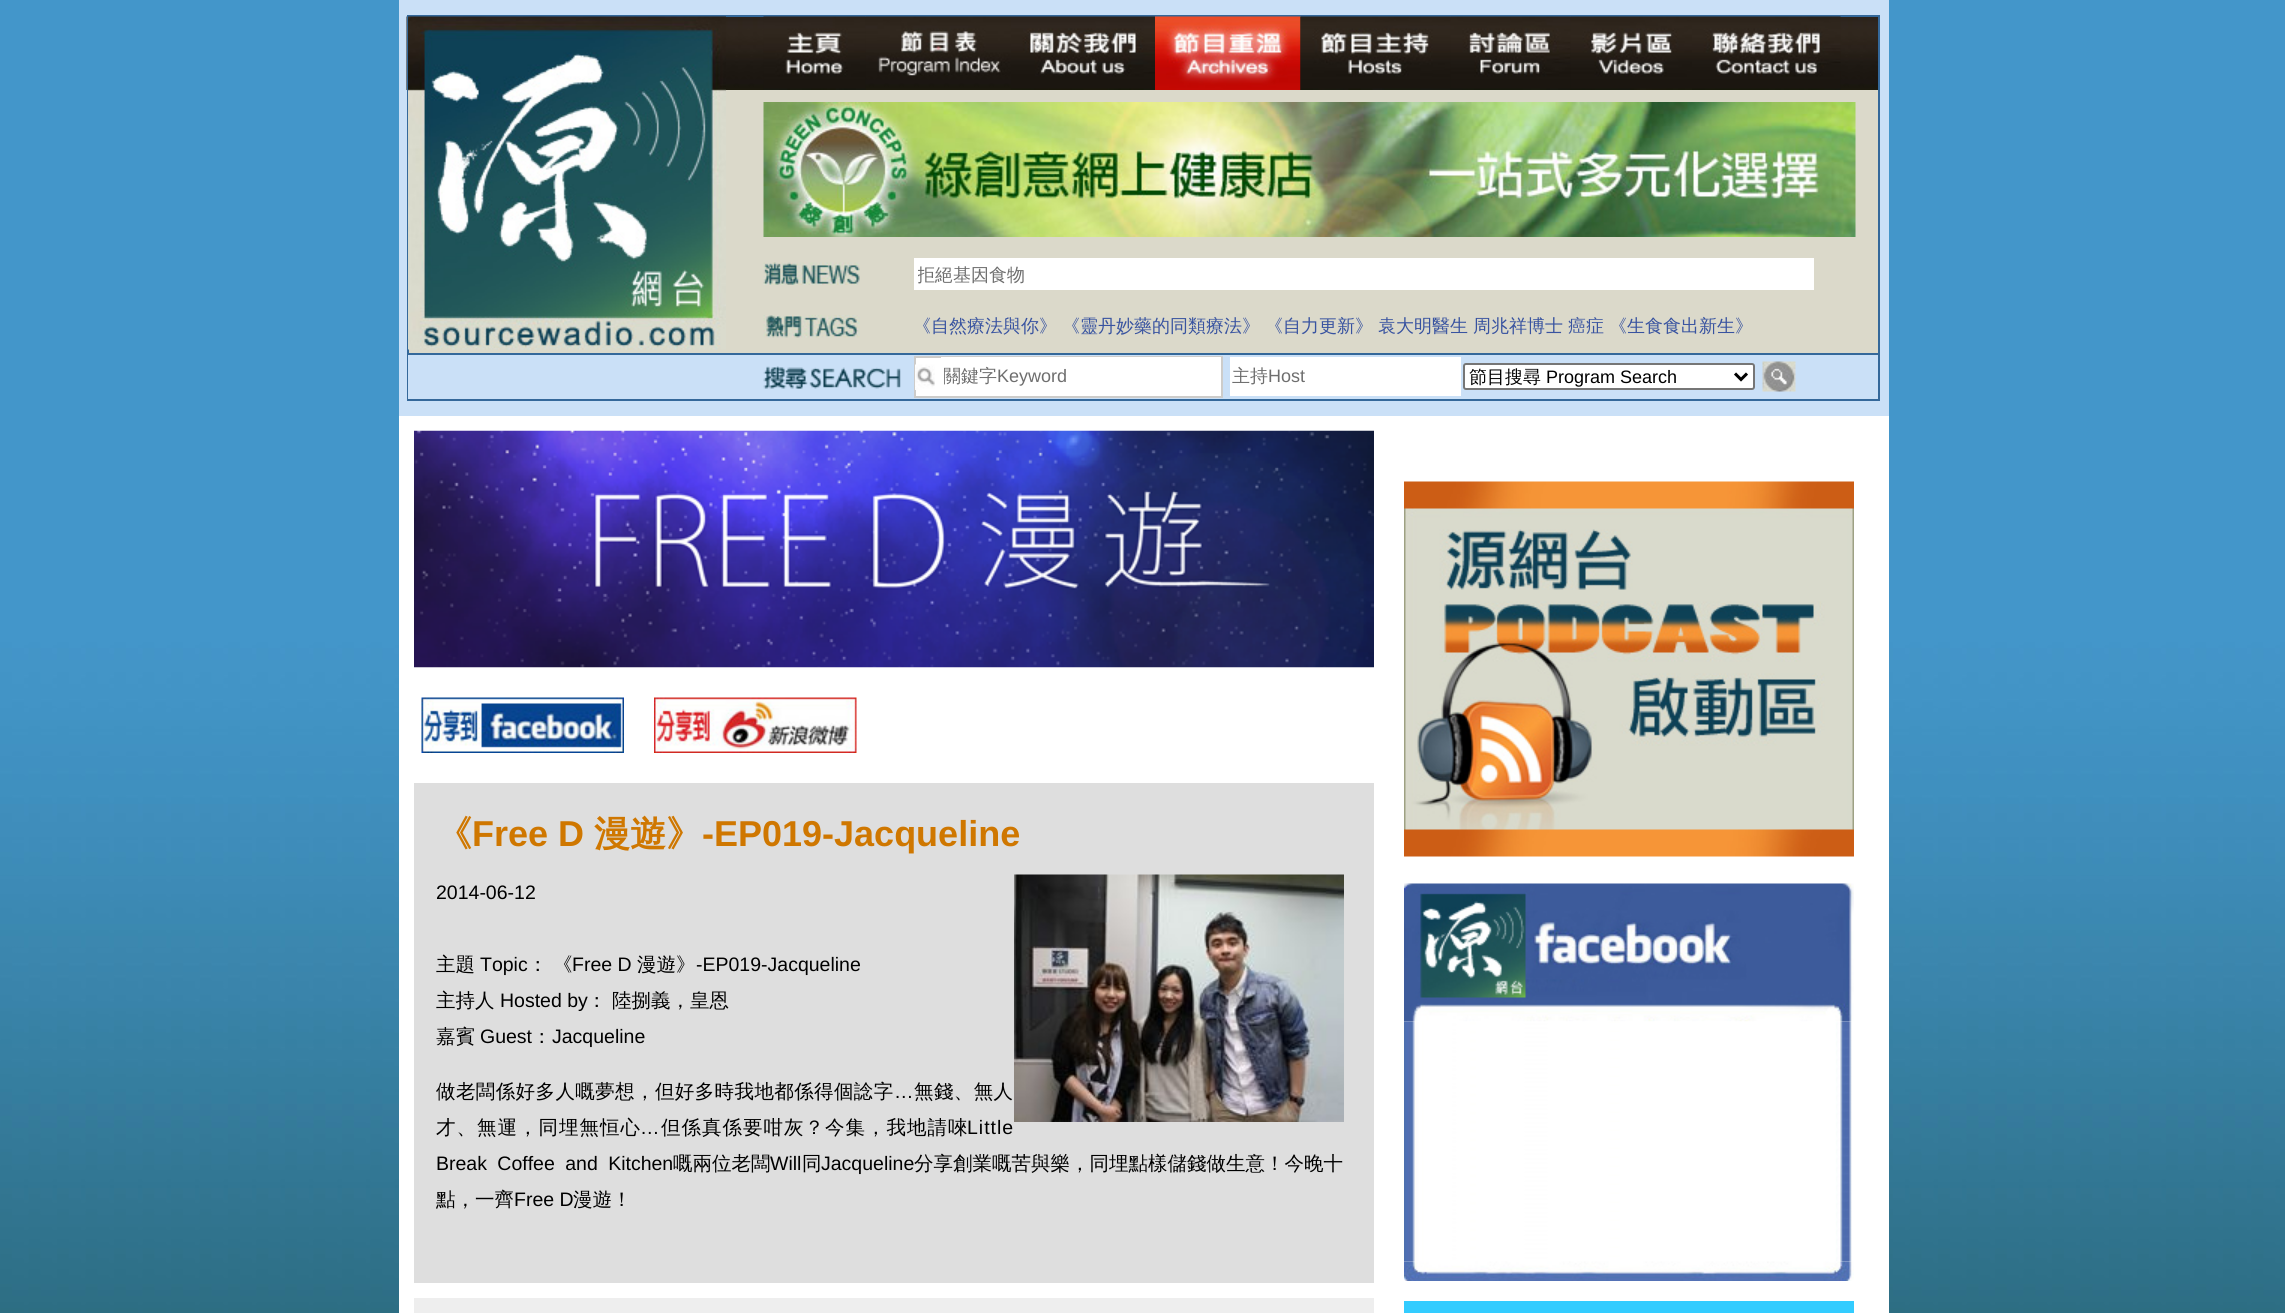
import math
import cairocffi as cairo

surface = cairo.ImageSurface(cairo.FORMAT_RGB24, 2285, 1313)
ctx = cairo.Context(surface)
options = cairo.FontOptions()
options.set_hint_metrics(cairo.HINT_METRICS_OFF)
options.set_hint_style(cairo.HINT_STYLE_NONE)
ctx.set_font_options(options)
ctx.set_miter_limit(4)


def rgb(r, g, b):
    ctx.set_source_rgb(r / 255, g / 255, b / 255)


def face(family, size, italic, bold):
    ctx.select_font_face(family, cairo.FONT_SLANT_ITALIC if italic else cairo.FONT_SLANT_NORMAL, cairo.FONT_WEIGHT_BOLD if bold else cairo.FONT_WEIGHT_NORMAL)
    ctx.set_font_size(size)


def label(x, y, s):
    ctx.move_to(x, y)
    ctx.show_text(s)


def tracked(x, y, s, letter, word):
    ctx.move_to(x, y)
    for ch in s:
        ctx.show_text(ch)
        ctx.rel_move_to(letter + word * (ch == ' '), 0)


def rect(x, y, w, h):
    ctx.rectangle(x, y, w, h)
    ctx.fill()


def rrect(x, y, w, h, r):
    ctx.new_sub_path()
    for i, (u, v) in enumerate([(x + w - r, y + h - r), (x + r, y + h - r), (x + r, y + r), (x + w - r, y + r)]):
        ctx.arc(u, v, r, i * math.pi / 2, (i + 1) * math.pi / 2)
    ctx.close_path()


def image(path, x, y, w, h):
    ctx.save()
    ctx.set_source_surface(cairo.ImageSurface.create_from_png(path), x, y)
    ctx.rectangle(x, y, w, h)
    ctx.fill()
    ctx.restore()


rgb(255, 255, 255)
ctx.paint()
image('image0.png', 0, 0, 2285, 1313)
rgb(202, 224, 247)
rect(399, 0, 1490, 416)
rgb(219, 217, 202)
rect(409, 90, 1469, 263)
image('image1.png', 406, 16, 1472, 74)
ctx.rectangle(408, 16, 1471, 384)
rgb(52, 104, 154)
ctx.stroke()
image('image2.png', 408, 16, 318, 334)
image('image3.png', 763, 16, 103, 74)
image('image4.png', 865, 16, 146, 60)
image('image5.png', 1011, 16, 144, 74)
image('image6.png', 1155, 16, 146, 74)
image('image7.png', 1300, 16, 151, 74)
image('image8.png', 1450, 16, 121, 74)
image('image9.png', 1570, 16, 122, 74)
image('image10.png', 1692, 16, 149, 74)
image('image11.png', 763, 102, 1093, 135)
image('image12.png', 763, 262, 97, 23)
rgb(255, 255, 255)
rect(914, 258, 900, 32)
ctx.save()
ctx.rectangle(918, 263, 891, 22)
ctx.clip()
face('WenQuanYi Zen Hei Medium', 18, 0, 0)
rgb(110, 110, 110)
label(917, 281, '拒絕基因食物')
ctx.restore()
image('image13.png', 763, 315, 97, 23)
face('WenQuanYi Zen Hei Medium', 18, 0, 0)
rgb(56, 83, 160)
label(913, 332, '《自然療法與你》')
label(1062, 332, '《靈丹妙藥的同類療法》')
label(1265, 332, '《自力更新》')
label(1378, 332, '袁大明醫生')
label(1473, 332, '周兆祥博士')
label(1568, 332, '癌症')
label(1609, 332, '《生食食出新生》')
rgb(202, 224, 247)
rect(408, 355, 1, 44)
rgb(52, 104, 154)
rect(408, 353, 1470, 2)
image('image14.png', 763, 366, 138, 23)
rgb(255, 255, 255)
rect(916, 358, 25, 38)
ctx.rectangle(915, 357, 307, 40)
rgb(205, 204, 202)
ctx.stroke()
image('image15.png', 915, 364, 20, 26)
rgb(255, 255, 255)
rect(941, 357, 280, 39)
ctx.save()
ctx.rectangle(944, 365, 274, 25)
ctx.clip()
rgb(110, 110, 110)
label(943, 382, '關鍵字')
ctx.restore()
face('Liberation Sans', 18, 0, 0)
rgb(110, 110, 110)
label(997, 382, 'Keyword')
rgb(255, 255, 255)
rect(1230, 357, 231, 39)
face('WenQuanYi Zen Hei Medium', 18, 0, 0)
rgb(110, 110, 110)
label(1232, 382, '主持')
face('Liberation Sans', 18, 0, 0)
label(1268, 382, 'Host')
rgb(255, 255, 255)
rrect(1464, 364, 290, 25, 2)
ctx.fill_preserve()
rgb(118, 118, 118)
ctx.stroke()
ctx.new_path()
ctx.move_to(1735, 373.5)
ctx.line_to(1741, 379.5)
ctx.line_to(1747, 373.5)
rgb(0, 0, 0)
ctx.set_line_width(3)
ctx.stroke()
face('WenQuanYi Zen Hei Medium', 18, 0, 0)
label(1469, 383, '節目搜尋')
face('Liberation Sans', 18, 0, 0)
label(1546, 383, 'Program Search')
image('image16.png', 1762, 361, 34, 31)
rgb(255, 255, 255)
rect(399, 416, 1490, 897)
image('image17.png', 414, 430, 960, 238)
image('image18.png', 421, 697, 203, 56)
image('image19.png', 654, 697, 203, 56)
rgb(222, 222, 222)
rect(414, 783, 960, 500)
face('WenQuanYi Zen Hei', 36, 0, 1)
rgb(207, 119, 0)
label(436, 846, '《')
face('Liberation Sans', 36, 0, 1)
label(472, 846, 'Free D')
face('WenQuanYi Zen Hei', 36, 0, 1)
label(594, 846, '漫遊》')
face('Liberation Sans', 36, 0, 1)
label(702, 846, '-EP019-Jacqueline')
face('Liberation Sans', 19.5, 0, 0)
rgb(0, 0, 0)
label(436, 899, '2014-06-12')
image('image20.png', 1014, 874, 330, 248)
face('WenQuanYi Zen Hei Medium', 19.5, 0, 0)
label(436, 971, '主題')
face('Liberation Sans', 19.5, 0, 0)
label(480, 971, 'Topic')
face('WenQuanYi Zen Hei Medium', 19.5, 0, 0)
label(528, 971, '：')
label(553, 971, '《')
face('Liberation Sans', 19.5, 0, 0)
label(572, 971, 'Free D')
face('WenQuanYi Zen Hei Medium', 19.5, 0, 0)
label(637, 971, '漫遊》')
face('Liberation Sans', 19.5, 0, 0)
label(696, 971, '-EP019-Jacqueline')
face('WenQuanYi Zen Hei Medium', 19.5, 0, 0)
label(436, 1007, '主持人')
face('Liberation Sans', 19.5, 0, 0)
label(500, 1007, 'Hosted by')
face('WenQuanYi Zen Hei Medium', 19.5, 0, 0)
label(587, 1007, '：')
label(612, 1007, '陸捌義，皇恩')
label(436, 1043, '嘉賓')
face('Liberation Sans', 19.5, 0, 0)
label(480, 1043, 'Guest')
face('WenQuanYi Zen Hei Medium', 19.5, 0, 0)
label(532, 1043, '：')
face('Liberation Sans', 19.5, 0, 0)
label(552, 1043, 'Jacqueline')
face('WenQuanYi Zen Hei Medium', 19.5, 0, 0)
tracked(436, 1098, '做老闆係好多人嘅夢想，但好多時我地都係得個諗字', 0.4, 0)
face('Liberation Sans', 19.5, 0, 0)
tracked(894, 1098, '…', 0.4, 0)
face('WenQuanYi Zen Hei Medium', 19.5, 0, 0)
tracked(914, 1098, '無錢、無人', 0.4, 0)
tracked(436, 1134, '才、無運，同埋無恒心', 1, 0)
face('Liberation Sans', 19.5, 0, 0)
tracked(640, 1134, '…', 1, 0)
face('WenQuanYi Zen Hei Medium', 19.5, 0, 0)
tracked(661, 1134, '但係真係要咁灰？今集，我地請唻', 1, 0)
face('Liberation Sans', 19.5, 0, 0)
tracked(967, 1134, 'Little', 1, 0)
tracked(436, 1170, 'Break Coffee and Kitchen', 0, 5)
face('WenQuanYi Zen Hei Medium', 19.5, 0, 0)
label(673, 1170, '嘅兩位老闆')
face('Liberation Sans', 19.5, 0, 0)
label(770, 1170, 'Will')
face('WenQuanYi Zen Hei Medium', 19.5, 0, 0)
label(802, 1170, '同')
face('Liberation Sans', 19.5, 0, 0)
label(821, 1170, 'Jacqueline')
face('WenQuanYi Zen Hei Medium', 19.5, 0, 0)
label(914, 1170, '分享創業嘅苦與樂，同埋點樣儲錢做生意！今晚十')
label(436, 1206, '點，一齊')
face('Liberation Sans', 19.5, 0, 0)
label(514, 1206, 'Free D')
face('WenQuanYi Zen Hei Medium', 19.5, 0, 0)
label(573, 1206, '漫遊！')
rgb(238, 238, 238)
rect(414, 1298, 960, 15)
image('image21.png', 1404, 481, 450, 376)
image('image22.png', 1404, 883, 450, 139)
image('image23.png', 1404, 1021, 448, 241)
image('image24.png', 1404, 1261, 450, 20)
ctx.rectangle(1408, 1305, 442, 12)
rgb(51, 204, 255)
ctx.set_line_width(8)
ctx.stroke()
rect(1412, 1309, 435, 4)
surface.write_to_png('render.png')
